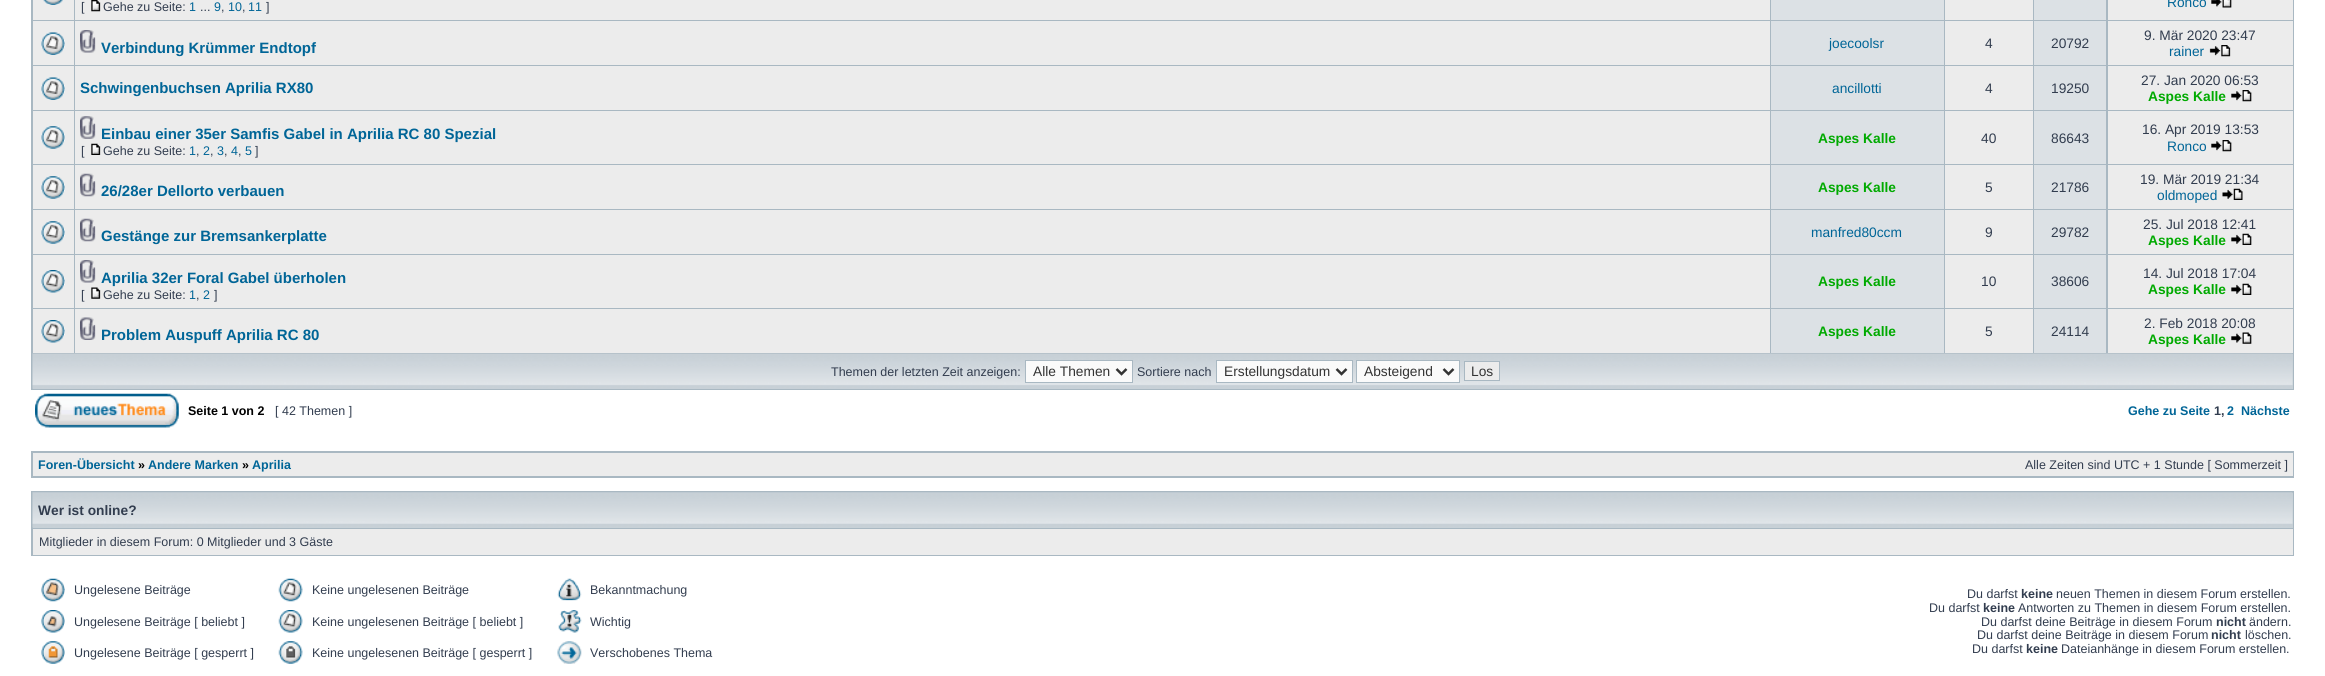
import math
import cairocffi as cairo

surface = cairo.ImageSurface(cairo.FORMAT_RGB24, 2325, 676)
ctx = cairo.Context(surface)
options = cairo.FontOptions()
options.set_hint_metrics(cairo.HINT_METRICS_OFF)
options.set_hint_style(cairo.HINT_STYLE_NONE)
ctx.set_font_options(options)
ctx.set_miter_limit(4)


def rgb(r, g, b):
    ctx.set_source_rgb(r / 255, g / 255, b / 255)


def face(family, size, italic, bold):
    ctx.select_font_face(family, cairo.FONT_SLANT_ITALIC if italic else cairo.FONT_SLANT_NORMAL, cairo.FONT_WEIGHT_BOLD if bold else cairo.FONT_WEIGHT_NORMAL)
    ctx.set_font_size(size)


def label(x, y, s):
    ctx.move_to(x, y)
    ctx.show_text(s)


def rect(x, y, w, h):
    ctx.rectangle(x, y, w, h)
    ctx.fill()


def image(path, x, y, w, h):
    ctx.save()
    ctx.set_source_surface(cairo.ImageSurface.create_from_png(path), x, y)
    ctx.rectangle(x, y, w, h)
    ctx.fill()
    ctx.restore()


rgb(255, 255, 255)
ctx.paint()
rgb(169, 184, 194)
rect(31, 0, 2263, 390)
rgb(236, 236, 236)
rect(33, 0, 41, 20)
image('image0.png', 43, 0, 20, 5)
rect(75, 0, 1695, 20)
face('Liberation Sans', 12.5, 0, 0)
rgb(50, 61, 79)
label(81, 11, '[')
image('image1.png', 91, 0, 10, 12)
label(103, 11, 'Gehe zu Seite:')
rgb(0, 101, 151)
label(189, 11, '1')
rgb(50, 61, 79)
label(200, 11, '...')
rgb(0, 101, 151)
label(214, 11, '9')
rgb(50, 61, 79)
label(221, 11, ',')
rgb(0, 101, 151)
label(228, 11, '10')
rgb(50, 61, 79)
label(242, 11, ',')
rgb(0, 101, 151)
label(248, 11, '11')
rgb(50, 61, 79)
label(266, 11, ']')
rgb(220, 225, 229)
rect(1771, 0, 173, 20)
rgb(236, 236, 236)
rect(1945, 0, 88, 20)
rgb(220, 225, 229)
rect(2034, 0, 72, 20)
rgb(236, 236, 236)
rect(2108, 0, 185, 20)
face('Liberation Sans', 13.75, 0, 0)
rgb(0, 101, 151)
label(2167, 7, 'Ronco')
image('image2.png', 2211, 0, 21, 8)
rgb(236, 236, 236)
rect(33, 21, 41, 44)
image('image3.png', 41, 32, 24, 23)
rect(75, 21, 1695, 44)
image('image4.png', 80, 30, 16, 23)
face('Liberation Sans', 15, 0, 1)
rgb(0, 101, 151)
label(101, 53, 'Verbindung Krümmer Endtopf')
rgb(220, 225, 229)
rect(1771, 21, 173, 44)
face('Liberation Sans', 13.75, 0, 0)
rgb(0, 101, 151)
label(1829, 48, 'joecoolsr')
rgb(236, 236, 236)
rect(1945, 21, 88, 44)
rgb(50, 61, 79)
label(1985, 48, '4')
rgb(220, 225, 229)
rect(2034, 21, 72, 44)
rgb(50, 61, 79)
label(2051, 48, '20792')
rgb(236, 236, 236)
rect(2108, 21, 185, 44)
rgb(50, 61, 79)
label(2144, 40, '9. Mär 2020 23:47')
rgb(0, 101, 151)
label(2169, 56, 'rainer')
image('image5.png', 2209, 45, 22, 12)
rgb(236, 236, 236)
rect(33, 66, 41, 44)
image('image3.png', 41, 77, 24, 23)
rect(75, 66, 1695, 44)
face('Liberation Sans', 15, 0, 1)
rgb(0, 101, 151)
label(80, 93, 'Schwingenbuchsen Aprilia RX80')
rgb(220, 225, 229)
rect(1771, 66, 173, 44)
face('Liberation Sans', 13.75, 0, 0)
rgb(0, 101, 151)
label(1832, 93, 'ancillotti')
rgb(236, 236, 236)
rect(1945, 66, 88, 44)
rgb(50, 61, 79)
label(1985, 93, '4')
rgb(220, 225, 229)
rect(2034, 66, 72, 44)
rgb(50, 61, 79)
label(2051, 93, '19250')
rgb(236, 236, 236)
rect(2108, 66, 185, 44)
rgb(50, 61, 79)
label(2141, 85, '27. Jan 2020 06:53')
face('Liberation Sans', 13.75, 0, 1)
rgb(0, 170, 0)
label(2148, 101, 'Aspes Kalle')
image('image6.png', 2231, 90, 21, 12)
rgb(236, 236, 236)
rect(33, 111, 41, 53)
image('image7.png', 41, 126, 24, 23)
rect(75, 111, 1695, 53)
image('image8.png', 80, 116, 16, 23)
face('Liberation Sans', 15, 0, 1)
rgb(0, 101, 151)
label(101, 139, 'Einbau einer 35er Samfis Gabel in Aprilia RC 80 Spezial')
face('Liberation Sans', 12.5, 0, 0)
rgb(50, 61, 79)
label(81, 155, '[')
image('image9.png', 91, 143, 10, 12)
label(103, 155, 'Gehe zu Seite:')
rgb(0, 101, 151)
label(189, 155, '1')
rgb(50, 61, 79)
label(196, 155, ',')
rgb(0, 101, 151)
label(203, 155, '2')
rgb(50, 61, 79)
label(210, 155, ',')
rgb(0, 101, 151)
label(217, 155, '3')
rgb(50, 61, 79)
label(224, 155, ',')
rgb(0, 101, 151)
label(231, 155, '4')
rgb(50, 61, 79)
label(238, 155, ',')
rgb(0, 101, 151)
label(245, 155, '5')
rgb(50, 61, 79)
label(255, 155, ']')
rgb(220, 225, 229)
rect(1771, 111, 173, 53)
face('Liberation Sans', 13.75, 0, 1)
rgb(0, 170, 0)
label(1818, 143, 'Aspes Kalle')
rgb(236, 236, 236)
rect(1945, 111, 88, 53)
face('Liberation Sans', 13.75, 0, 0)
rgb(50, 61, 79)
label(1981, 143, '40')
rgb(220, 225, 229)
rect(2034, 111, 72, 53)
rgb(50, 61, 79)
label(2051, 143, '86643')
rgb(236, 236, 236)
rect(2108, 111, 185, 53)
rgb(50, 61, 79)
label(2142, 134, '16. Apr 2019 13:53')
rgb(0, 101, 151)
label(2167, 151, 'Ronco')
image('image6.png', 2211, 140, 21, 12)
rgb(236, 236, 236)
rect(33, 165, 41, 44)
image('image10.png', 41, 176, 24, 23)
rect(75, 165, 1695, 44)
image('image11.png', 80, 173, 16, 24)
face('Liberation Sans', 15, 0, 1)
rgb(0, 101, 151)
label(101, 196, '26/28er Dellorto verbauen')
rgb(220, 225, 229)
rect(1771, 165, 173, 44)
face('Liberation Sans', 13.75, 0, 1)
rgb(0, 170, 0)
label(1818, 192, 'Aspes Kalle')
rgb(236, 236, 236)
rect(1945, 165, 88, 44)
face('Liberation Sans', 13.75, 0, 0)
rgb(50, 61, 79)
label(1985, 192, '5')
rgb(220, 225, 229)
rect(2034, 165, 72, 44)
rgb(50, 61, 79)
label(2051, 192, '21786')
rgb(236, 236, 236)
rect(2108, 165, 185, 44)
rgb(50, 61, 79)
label(2140, 184, '19. Mär 2019 21:34')
rgb(0, 101, 151)
label(2157, 200, 'oldmoped')
image('image12.png', 2222, 188, 21, 12)
rgb(236, 236, 236)
rect(33, 210, 41, 44)
image('image13.png', 41, 221, 24, 23)
rect(75, 210, 1695, 44)
image('image14.png', 80, 218, 16, 24)
face('Liberation Sans', 15, 0, 1)
rgb(0, 101, 151)
label(101, 241, 'Gestänge zur Bremsankerplatte')
rgb(220, 225, 229)
rect(1771, 210, 173, 44)
face('Liberation Sans', 13.75, 0, 0)
rgb(0, 101, 151)
label(1811, 237, 'manfred80ccm')
rgb(236, 236, 236)
rect(1945, 210, 88, 44)
rgb(50, 61, 79)
label(1985, 237, '9')
rgb(220, 225, 229)
rect(2034, 210, 72, 44)
rgb(50, 61, 79)
label(2051, 237, '29782')
rgb(236, 236, 236)
rect(2108, 210, 185, 44)
rgb(50, 61, 79)
label(2143, 229, '25. Jul 2018 12:41')
face('Liberation Sans', 13.75, 0, 1)
rgb(0, 170, 0)
label(2148, 245, 'Aspes Kalle')
image('image15.png', 2231, 233, 21, 12)
rgb(236, 236, 236)
rect(33, 255, 41, 53)
image('image16.png', 41, 270, 24, 23)
rect(75, 255, 1695, 53)
image('image4.png', 80, 260, 16, 23)
face('Liberation Sans', 15, 0, 1)
rgb(0, 101, 151)
label(101, 283, 'Aprilia 32er Foral Gabel überholen')
face('Liberation Sans', 12.5, 0, 0)
rgb(50, 61, 79)
label(81, 299, '[')
image('image17.png', 91, 287, 10, 12)
label(103, 299, 'Gehe zu Seite:')
rgb(0, 101, 151)
label(189, 299, '1')
rgb(50, 61, 79)
label(196, 299, ',')
rgb(0, 101, 151)
label(203, 299, '2')
rgb(50, 61, 79)
label(214, 299, ']')
rgb(220, 225, 229)
rect(1771, 255, 173, 53)
face('Liberation Sans', 13.75, 0, 1)
rgb(0, 170, 0)
label(1818, 286, 'Aspes Kalle')
rgb(236, 236, 236)
rect(1945, 255, 88, 53)
face('Liberation Sans', 13.75, 0, 0)
rgb(50, 61, 79)
label(1981, 286, '10')
rgb(220, 225, 229)
rect(2034, 255, 72, 53)
rgb(50, 61, 79)
label(2051, 286, '38606')
rgb(236, 236, 236)
rect(2108, 255, 185, 53)
rgb(50, 61, 79)
label(2143, 278, '14. Jul 2018 17:04')
face('Liberation Sans', 13.75, 0, 1)
rgb(0, 170, 0)
label(2148, 294, 'Aspes Kalle')
image('image15.png', 2231, 283, 21, 12)
rgb(236, 236, 236)
rect(33, 309, 41, 44)
image('image16.png', 41, 320, 24, 23)
rect(75, 309, 1695, 44)
image('image18.png', 80, 317, 16, 23)
face('Liberation Sans', 15, 0, 1)
rgb(0, 101, 151)
label(101, 340, 'Problem Auspuff Aprilia RC 80')
rgb(220, 225, 229)
rect(1771, 309, 173, 44)
face('Liberation Sans', 13.75, 0, 1)
rgb(0, 170, 0)
label(1818, 336, 'Aspes Kalle')
rgb(236, 236, 236)
rect(1945, 309, 88, 44)
face('Liberation Sans', 13.75, 0, 0)
rgb(50, 61, 79)
label(1985, 336, '5')
rgb(220, 225, 229)
rect(2034, 309, 72, 44)
rgb(50, 61, 79)
label(2051, 336, '24114')
rgb(236, 236, 236)
rect(2108, 309, 185, 44)
rgb(50, 61, 79)
label(2144, 328, '2. Feb 2018 20:08')
face('Liberation Sans', 13.75, 0, 1)
rgb(0, 170, 0)
label(2148, 344, 'Aspes Kalle')
image('image19.png', 2231, 332, 21, 12)
rgb(199, 208, 215)
rect(33, 354, 2260, 35)
image('image20.png', 32, 353, 2261, 36)
face('Liberation Sans', 12.5, 0, 0)
rgb(50, 61, 79)
label(831, 376, 'Themen der letzten Zeit anzeigen:')
rgb(250, 250, 250)
ctx.rectangle(1025.5, 360.5, 107, 22)
ctx.fill_preserve()
rgb(169, 184, 194)
ctx.set_line_width(1)
ctx.stroke()
ctx.new_path()
ctx.move_to(1116.5, 369)
ctx.line_to(1121.5, 374)
ctx.line_to(1126.5, 369)
rgb(51, 51, 51)
ctx.set_line_width(2.5)
ctx.stroke()
face('Liberation Sans', 13.75, 0, 0)
label(1033, 376, 'Alle Themen')
face('Liberation Sans', 12.5, 0, 0)
rgb(50, 61, 79)
label(1137, 376, 'Sortiere nach')
rgb(250, 250, 250)
ctx.rectangle(1216.5, 360.5, 136, 22)
ctx.fill_preserve()
rgb(169, 184, 194)
ctx.set_line_width(1)
ctx.stroke()
ctx.new_path()
ctx.move_to(1336.5, 369)
ctx.line_to(1341.5, 374)
ctx.line_to(1346.5, 369)
rgb(51, 51, 51)
ctx.set_line_width(2.5)
ctx.stroke()
face('Liberation Sans', 13.75, 0, 0)
label(1224, 376, 'Erstellungsdatum')
rgb(250, 250, 250)
ctx.rectangle(1356.5, 360.5, 103, 22)
ctx.fill_preserve()
rgb(169, 184, 194)
ctx.set_line_width(1)
ctx.stroke()
ctx.new_path()
ctx.move_to(1443.5, 369)
ctx.line_to(1448.5, 374)
ctx.line_to(1453.5, 369)
rgb(51, 51, 51)
ctx.set_line_width(2.5)
ctx.stroke()
label(1364, 376, 'Absteigend')
rgb(236, 236, 236)
ctx.rectangle(1464.5, 361.5, 35, 19)
ctx.fill_preserve()
rgb(169, 184, 194)
ctx.set_line_width(1)
ctx.stroke()
rgb(51, 51, 51)
label(1471, 376, 'Los')
image('image21.png', 35, 393, 144, 35)
face('Liberation Sans', 12.5, 0, 1)
rgb(0, 0, 0)
label(188, 415, 'Seite 1 von 2')
face('Liberation Sans', 12.5, 0, 0)
rgb(50, 61, 79)
label(275, 415, '[ 42 Themen ]')
face('Liberation Sans', 12.5, 0, 1)
rgb(0, 101, 151)
label(2128, 415, 'Gehe zu Seite')
rgb(50, 61, 79)
label(2214, 415, '1,')
rgb(0, 101, 151)
label(2227, 415, '2')
label(2241, 415, 'Nächste')
rgb(169, 184, 194)
rect(31, 451, 2263, 27)
rgb(236, 236, 236)
rect(33, 453, 2260, 23)
rgb(0, 101, 151)
label(38, 469, 'Foren-Übersicht')
rgb(0, 0, 0)
label(138, 469, '»')
rgb(0, 101, 151)
label(148, 469, 'Andere Marken')
rgb(0, 0, 0)
label(242, 469, '»')
rgb(0, 101, 151)
label(252, 469, 'Aprilia')
face('Liberation Sans', 12.5, 0, 0)
rgb(50, 61, 79)
label(2025, 469, 'Alle Zeiten sind UTC + 1 Stunde [ Sommerzeit ]')
rgb(169, 184, 194)
rect(31, 491, 2263, 65)
rgb(199, 208, 215)
rect(33, 493, 2260, 35)
image('image22.png', 32, 492, 2261, 36)
face('Liberation Sans', 13.75, 0, 1)
rgb(50, 61, 79)
label(38, 515, 'Wer ist online?')
rgb(236, 236, 236)
rect(33, 529, 2260, 26)
face('Liberation Sans', 12.5, 0, 0)
rgb(50, 61, 79)
label(39, 546, 'Mitglieder in diesem Forum: 0 Mitglieder und 3 Gäste')
image('image23.png', 41, 578, 24, 24)
label(74, 594, 'Ungelesene Beiträge')
image('image24.png', 278, 578, 25, 24)
label(312, 594, 'Keine ungelesenen Beiträge')
image('image25.png', 557, 578, 25, 23)
label(590, 594, 'Bekanntmachung')
image('image26.png', 41, 610, 24, 23)
label(74, 626, 'Ungelesene Beiträge [ beliebt ]')
image('image27.png', 278, 610, 25, 23)
label(312, 626, 'Keine ungelesenen Beiträge [ beliebt ]')
image('image28.png', 558, 610, 24, 23)
label(590, 626, 'Wichtig')
image('image29.png', 41, 641, 24, 23)
label(74, 657, 'Ungelesene Beiträge [ gesperrt ]')
image('image30.png', 278, 641, 25, 23)
label(312, 657, 'Keine ungelesenen Beiträge [ gesperrt ]')
image('image31.png', 557, 641, 25, 23)
label(590, 657, 'Verschobenes Thema')
label(1967, 598, 'Du darfst')
face('Liberation Sans', 12.5, 0, 1)
label(2021, 598, 'keine')
face('Liberation Sans', 12.5, 0, 0)
label(2056, 598, 'neuen Themen in diesem Forum erstellen.')
label(1929, 612, 'Du darfst')
face('Liberation Sans', 12.5, 0, 1)
label(1983, 612, 'keine')
face('Liberation Sans', 12.5, 0, 0)
label(2018, 612, 'Antworten zu Themen in diesem Forum erstellen.')
label(1981, 626, 'Du darfst deine Beiträge in diesem Forum')
face('Liberation Sans', 12.5, 0, 1)
label(2216, 626, 'nicht')
face('Liberation Sans', 12.5, 0, 0)
label(2249, 626, 'ändern.')
label(1977, 639, 'Du darfst deine Beiträge in diesem Forum')
face('Liberation Sans', 12.5, 0, 1)
label(2211, 639, 'nicht')
face('Liberation Sans', 12.5, 0, 0)
label(2245, 639, 'löschen.')
label(1972, 653, 'Du darfst')
face('Liberation Sans', 12.5, 0, 1)
label(2026, 653, 'keine')
face('Liberation Sans', 12.5, 0, 0)
label(2061, 653, 'Dateianhänge in diesem Forum erstellen.')
surface.write_to_png('render.png')
